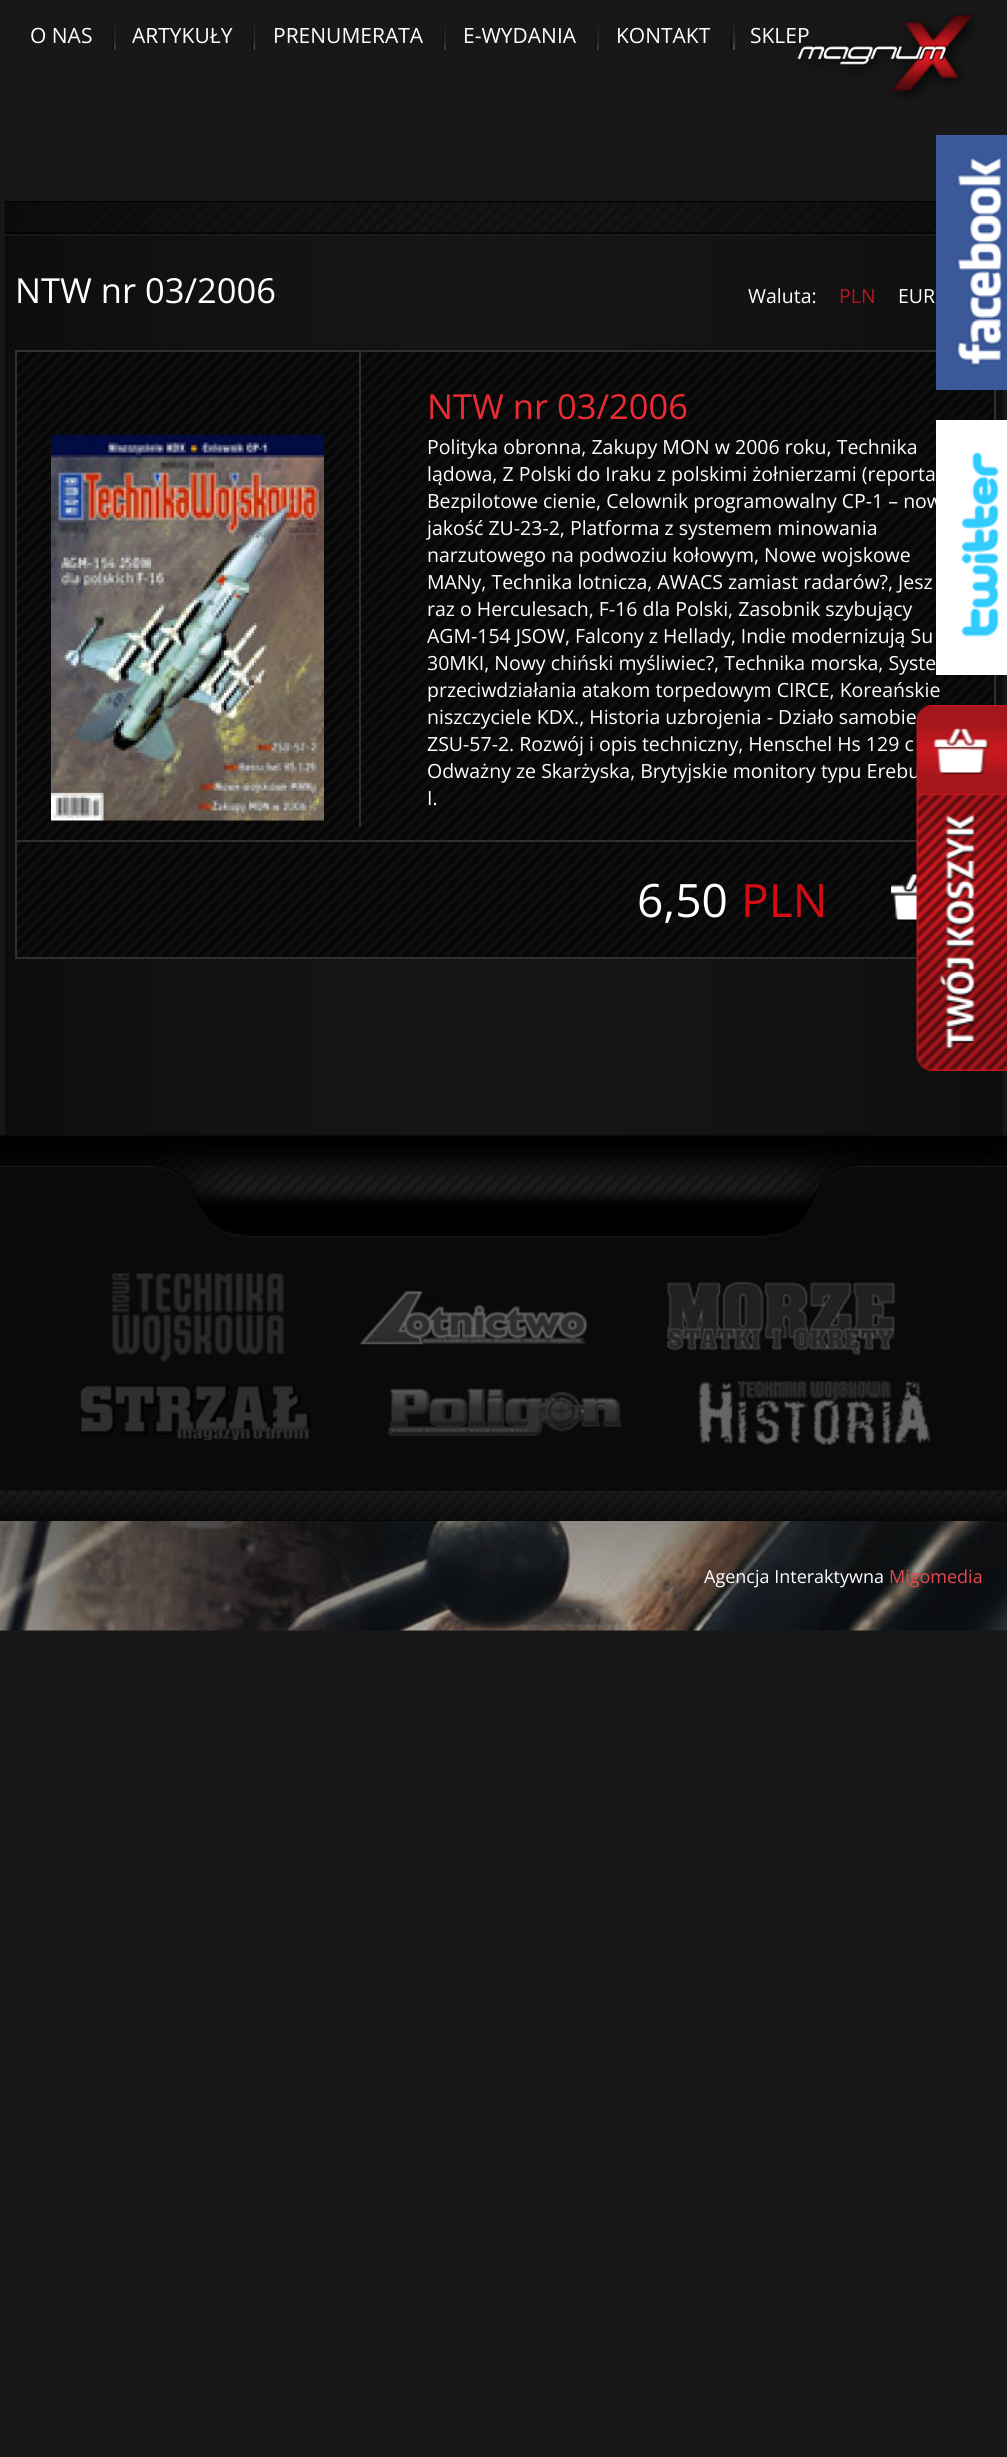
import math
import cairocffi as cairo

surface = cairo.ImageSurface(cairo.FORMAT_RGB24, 1007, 2457)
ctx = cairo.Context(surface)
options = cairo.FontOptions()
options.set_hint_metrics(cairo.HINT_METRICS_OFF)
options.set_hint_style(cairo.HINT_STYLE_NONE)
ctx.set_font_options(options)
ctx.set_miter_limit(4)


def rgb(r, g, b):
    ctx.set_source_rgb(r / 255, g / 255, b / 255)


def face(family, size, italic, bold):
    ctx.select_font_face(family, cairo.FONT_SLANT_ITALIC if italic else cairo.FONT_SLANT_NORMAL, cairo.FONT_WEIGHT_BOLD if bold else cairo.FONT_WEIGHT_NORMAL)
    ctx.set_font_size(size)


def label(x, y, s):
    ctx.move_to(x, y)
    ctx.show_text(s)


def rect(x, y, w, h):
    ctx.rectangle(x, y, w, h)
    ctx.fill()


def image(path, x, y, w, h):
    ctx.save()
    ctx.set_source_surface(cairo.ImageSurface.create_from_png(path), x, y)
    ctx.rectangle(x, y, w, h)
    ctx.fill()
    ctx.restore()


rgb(24, 24, 24)
ctx.paint()
image('image0.png', 0, 1521, 1007, 110)
face('Open Sans', 21, 0, 0)
rgb(255, 255, 255)
label(30, 43, 'O NAS')
image('image1.png', 112, 26, 4, 24)
label(132, 43, 'ARTYKUŁY')
image('image2.png', 252, 24, 3, 26)
label(273, 43, 'PRENUMERATA')
image('image1.png', 442, 26, 4, 24)
label(463, 43, 'E-WYDANIA')
image('image1.png', 595, 26, 4, 24)
label(616, 43, 'KONTAKT')
image('image3.png', 730, 24, 5, 26)
image('image4.png', 797, 13, 179, 87)
label(750, 43, 'SKLEP')
image('image6.png', 4, 235, 1000, 901)
image('image5.png', 4, 201, 932, 35)
face('Open Sans', 34.5, 0, 0)
label(15, 303, 'NTW nr 03/2006')
face('Open Sans', 19.5, 0, 0)
label(748, 303, 'Waluta:')
rgb(182, 23, 30)
label(839, 303, 'PLN')
rgb(255, 255, 255)
label(898, 303, 'EUR')
image('image7.png', 15, 349, 979, 608)
ctx.rectangle(16, 351, 979, 607)
rgb(48, 48, 48)
ctx.stroke()
rect(359, 351, 2, 476)
image('image8.png', 51, 435, 273, 386)
face('Open Sans', 34.5, 0, 0)
rgb(234, 43, 51)
label(427, 419, 'NTW nr 03/2006')
face('Open Sans', 19.5, 0, 0)
rgb(255, 255, 255)
label(427, 454, 'Polityka obronna, Zakupy MON w 2006 roku, Technika')
label(427, 481, 'lądowa, Z Polski do Iraku z polskimi żołnierzami (reporta')
label(427, 508, 'Bezpilotowe cienie, Celownik programowalny CP-1 – now')
label(427, 535, 'jakość ZU-23-2, Platforma z systemem minowania')
label(427, 562, 'narzutowego na podwoziu kołowym, Nowe wojskowe')
label(427, 589, 'MANy, Technika lotnicza, AWACS zamiast radarów?, Jesz')
label(427, 616, 'raz o Herculesach, F-16 dla Polski, Zasobnik szybujący')
label(427, 643, 'AGM-154 JSOW, Falcony z Hellady, Indie modernizują Su')
label(427, 670, '30MKI, Nowy chiński myśliwiec?, Technika morska, Syste')
label(427, 697, 'przeciwdziałania atakom torpedowym CIRCE, Koreańskie')
label(427, 724, 'niszczyciele KDX., Historia uzbrojenia - Działo samobie')
label(427, 751, 'ZSU-57-2. Rozwój i opis techniczny, Henschel Hs 129 c')
label(427, 778, 'Odważny ze Skarżyska, Brytyjskie monitory typu Erebu')
label(427, 805, 'I.')
rgb(48, 48, 48)
rect(17, 840, 900, 2)
face('Open Sans', 46, 0, 0)
rgb(255, 255, 255)
label(637, 917, '6,50')
rgb(211, 12, 19)
label(741, 917, 'PLN')
image('image9.png', 891, 874, 26, 47)
rgb(10, 10, 10)
rect(0, 1238, 1007, 252)
image('image10.png', 0, 1135, 1007, 103)
image('image11.png', 112, 1271, 172, 92)
image('image12.png', 360, 1291, 227, 54)
image('image13.png', 666, 1281, 230, 74)
image('image14.png', 79, 1384, 232, 57)
image('image15.png', 388, 1388, 234, 48)
image('image16.png', 698, 1381, 233, 64)
image('image17.png', 0, 1490, 1007, 31)
face('Open Sans', 18, 0, 0)
rgb(255, 255, 255)
label(704, 1583, 'Agencja Interaktywna')
rgb(229, 72, 78)
label(889, 1583, 'Migomedia')
image('image18.png', 936, 135, 71, 255)
image('image19.png', 936, 420, 71, 255)
image('image20.png', 916, 705, 91, 366)
surface.write_to_png('render.png')
